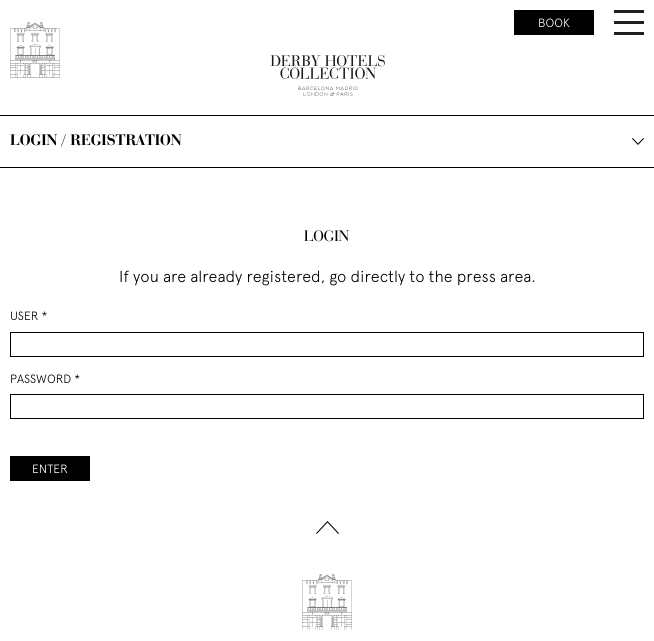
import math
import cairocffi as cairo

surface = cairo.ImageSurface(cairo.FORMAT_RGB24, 654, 641)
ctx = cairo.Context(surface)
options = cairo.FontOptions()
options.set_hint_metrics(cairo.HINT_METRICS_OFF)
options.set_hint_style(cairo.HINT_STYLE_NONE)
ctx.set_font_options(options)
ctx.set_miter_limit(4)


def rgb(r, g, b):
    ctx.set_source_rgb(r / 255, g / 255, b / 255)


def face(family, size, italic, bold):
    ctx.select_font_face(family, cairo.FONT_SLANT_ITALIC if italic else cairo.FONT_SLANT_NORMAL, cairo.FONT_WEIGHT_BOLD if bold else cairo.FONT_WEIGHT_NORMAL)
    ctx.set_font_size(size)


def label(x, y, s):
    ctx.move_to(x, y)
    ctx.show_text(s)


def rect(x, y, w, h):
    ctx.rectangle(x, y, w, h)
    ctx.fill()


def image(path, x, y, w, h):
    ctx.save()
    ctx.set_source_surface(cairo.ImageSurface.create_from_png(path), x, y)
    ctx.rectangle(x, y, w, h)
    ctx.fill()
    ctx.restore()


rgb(255, 255, 255)
ctx.paint()
image('image0.png', 10, 22, 50, 56)
image('image1.png', 270, 55, 115, 41)
rgb(0, 0, 0)
rect(514, 10, 80, 25)
face('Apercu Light', 12, 0, 0)
rgb(255, 255, 255)
label(538, 27, 'BOOK')
image('image2.png', 614, 10, 30, 25)
rgb(0, 0, 0)
rect(0, 115, 654, 1)
rect(0, 167, 654, 1)
face('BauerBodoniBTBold', 16, 0, 0)
label(10, 145, 'LOGIN / REGISTRATION')
image('image3.png', 632, 138, 12, 7)
face('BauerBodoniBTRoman', 16, 0, 0)
label(304, 241, 'LOGIN')
face('Apercu Light', 16, 0, 0)
label(119, 282, 'If you are already registered, go directly to the press area.')
face('Apercu Light', 12, 0, 0)
label(10, 320, 'USER *')
ctx.rectangle(10.5, 332.5, 633, 24)
ctx.set_line_width(1)
ctx.stroke()
label(10, 383, 'PASSWORD *')
ctx.rectangle(10.5, 394.5, 633, 24)
ctx.stroke()
rect(10, 456, 80, 25)
rgb(255, 255, 255)
label(32, 473, 'ENTER')
image('image4.png', 316, 521, 23, 13)
image('image5.png', 302, 574, 50, 56)
surface.write_to_png('render.png')
